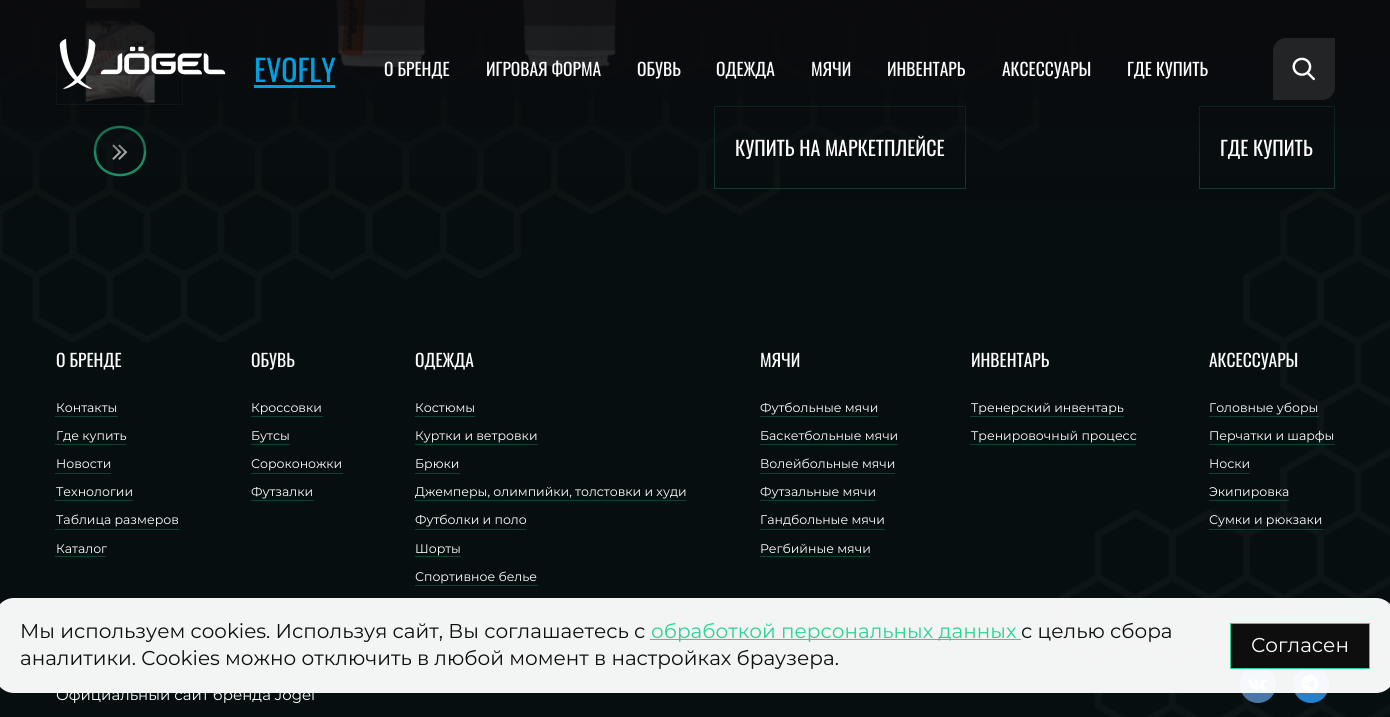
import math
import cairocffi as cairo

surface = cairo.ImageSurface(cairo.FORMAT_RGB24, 1390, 717)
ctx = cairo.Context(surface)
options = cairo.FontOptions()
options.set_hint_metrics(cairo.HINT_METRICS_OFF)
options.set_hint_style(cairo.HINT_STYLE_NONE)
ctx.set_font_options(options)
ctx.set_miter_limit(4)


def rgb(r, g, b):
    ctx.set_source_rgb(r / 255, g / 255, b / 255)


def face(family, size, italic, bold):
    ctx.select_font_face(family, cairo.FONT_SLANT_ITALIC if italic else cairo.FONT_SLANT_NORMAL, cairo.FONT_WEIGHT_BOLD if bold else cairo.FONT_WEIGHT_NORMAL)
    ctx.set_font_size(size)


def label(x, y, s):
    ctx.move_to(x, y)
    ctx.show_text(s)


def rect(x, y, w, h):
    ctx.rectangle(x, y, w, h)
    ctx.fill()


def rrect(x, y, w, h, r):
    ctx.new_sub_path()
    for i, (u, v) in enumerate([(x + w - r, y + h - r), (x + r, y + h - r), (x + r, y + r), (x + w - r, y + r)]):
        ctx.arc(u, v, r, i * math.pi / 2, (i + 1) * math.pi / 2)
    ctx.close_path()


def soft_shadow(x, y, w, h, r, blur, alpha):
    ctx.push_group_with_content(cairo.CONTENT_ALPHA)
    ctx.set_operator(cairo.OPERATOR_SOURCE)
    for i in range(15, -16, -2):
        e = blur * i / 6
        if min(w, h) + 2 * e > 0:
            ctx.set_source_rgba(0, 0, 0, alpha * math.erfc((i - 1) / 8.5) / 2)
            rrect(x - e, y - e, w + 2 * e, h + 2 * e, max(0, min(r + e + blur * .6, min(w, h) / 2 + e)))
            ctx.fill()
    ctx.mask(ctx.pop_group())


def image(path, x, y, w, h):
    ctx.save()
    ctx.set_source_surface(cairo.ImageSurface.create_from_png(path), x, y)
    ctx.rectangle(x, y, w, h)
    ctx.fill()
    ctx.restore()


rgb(6, 14, 16)
ctx.paint()
image('image0.png', 0, 0, 1076, 343)
image('image1.png', 1058, 189, 332, 528)
ctx.rectangle(56.5, -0.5, 126, 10)
ctx.set_source_rgba(1, 1, 1, 0.1)
ctx.set_line_width(1)
ctx.stroke()
image('image4.png', 85, 0, 56, 9)
ctx.rectangle(56.5, 20.5, 126, 84)
ctx.stroke()
image('image5.png', 85, 20, 70, 83)
ctx.new_path()
ctx.move_to(145, 151)
ctx.curve_to(145, 183, 95, 183, 95, 151)
ctx.curve_to(95, 119, 145, 119, 145, 151)
ctx.close_path()
rgb(42, 212, 147)
ctx.set_line_width(2.5)
ctx.stroke()
image('image6.png', 112, 144, 16, 16)
image('image7.png', 336, 0, 281, 68)
ctx.rectangle(714.5, 106.5, 251, 82)
ctx.set_source_rgba(0.165, 0.831, 0.576, 0.3)
ctx.set_line_width(1)
ctx.stroke()
ctx.rectangle(1199.5, 106.5, 135, 82)
rgb(17, 73, 55)
ctx.stroke()
rgb(10, 11, 13)
soft_shadow(-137, -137, 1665, 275, 0, 75, 1)
image('image2.png', 59, 39, 167, 50)
face('Oswald', 30, 0, 0)
rgb(0, 160, 224)
label(254, 82, 'EVOFLY')
rect(254, 85, 81, 3)
face('Oswald', 17.5, 0, 0)
rgb(255, 255, 255)
label(384, 76, 'О БРЕНДЕ')
label(486, 76, 'ИГРОВАЯ ФОРМА')
label(637, 76, 'ОБУВЬ')
label(716, 76, 'ОДЕЖДА')
label(811, 76, 'МЯЧИ')
label(887, 76, 'ИНВЕНТАРЬ')
label(1002, 76, 'АКСЕССУАРЫ')
label(1127, 76, 'ГДЕ КУПИТЬ')
rgb(34, 36, 38)
ctx.new_path()
ctx.move_to(1286, 38)
ctx.line_to(1335, 38)
ctx.line_to(1335, 87)
ctx.curve_to(1335, 94, 1329, 100, 1322, 100)
ctx.line_to(1273, 100)
ctx.line_to(1273, 51)
ctx.curve_to(1273, 44, 1279, 38, 1286, 38)
ctx.close_path()
ctx.fill()
image('image3.png', 1292, 57, 23, 24)
face('Oswald', 20, 0, 0)
rgb(255, 255, 255)
label(735, 156, 'КУПИТЬ НА МАРКЕТПЛЕЙСЕ')
label(1220, 156, 'ГДЕ КУПИТЬ')
face('Oswald', 17.5, 0, 0)
label(56, 367, 'О БРЕНДЕ')
face('Montserrat', 12.5, 0, 0)
label(56, 412, 'Контакты')
rgb(15, 64, 49)
rect(55, 416, 63, 1)
rgb(255, 255, 255)
label(56, 440, 'Где купить')
rgb(15, 64, 49)
rect(55, 444, 71, 1)
rgb(255, 255, 255)
label(56, 468, 'Новости')
rgb(15, 64, 49)
rect(55, 473, 56, 1)
rgb(255, 255, 255)
label(56, 496, 'Технологии')
rgb(15, 64, 49)
rect(55, 500, 78, 1)
rgb(255, 255, 255)
label(56, 524, 'Таблица размеров')
rgb(15, 64, 49)
rect(55, 529, 124, 1)
rgb(255, 255, 255)
label(56, 553, 'Каталог')
rgb(15, 64, 49)
rect(55, 556, 51, 1)
face('Oswald', 17.5, 0, 0)
rgb(255, 255, 255)
label(251, 367, 'ОБУВЬ')
face('Montserrat', 12.5, 0, 0)
label(251, 412, 'Кроссовки')
rgb(15, 64, 49)
rect(251, 416, 72, 1)
rgb(255, 255, 255)
label(251, 440, 'Бутсы')
rgb(15, 64, 49)
rect(251, 444, 39, 1)
rgb(255, 255, 255)
label(251, 468, 'Сороконожки')
rgb(15, 64, 49)
rect(251, 473, 92, 1)
rgb(255, 255, 255)
label(251, 496, 'Футзалки')
rgb(15, 64, 49)
rect(251, 500, 63, 1)
face('Oswald', 17.5, 0, 0)
rgb(255, 255, 255)
label(415, 367, 'ОДЕЖДА')
face('Montserrat', 12.5, 0, 0)
label(415, 412, 'Костюмы')
rgb(15, 64, 49)
rect(415, 416, 60, 1)
rgb(255, 255, 255)
label(415, 440, 'Куртки и ветровки')
rgb(15, 64, 49)
rect(415, 444, 123, 1)
rgb(255, 255, 255)
label(415, 468, 'Брюки')
rgb(15, 64, 49)
rect(415, 473, 45, 1)
rgb(255, 255, 255)
label(415, 496, 'Джемперы, олимпийки, толстовки и худи')
rgb(15, 64, 49)
rect(415, 500, 271, 1)
rgb(255, 255, 255)
label(415, 524, 'Футболки и поло')
rgb(15, 64, 49)
rect(415, 529, 111, 1)
rgb(255, 255, 255)
label(415, 553, 'Шорты')
rgb(15, 64, 49)
rect(415, 556, 46, 1)
rgb(255, 255, 255)
label(415, 581, 'Спортивное белье')
rgb(15, 64, 49)
rect(415, 585, 123, 1)
face('Oswald', 17.5, 0, 0)
rgb(255, 255, 255)
label(760, 367, 'МЯЧИ')
face('Montserrat', 12.5, 0, 0)
label(760, 412, 'Футбольные мячи')
rgb(15, 64, 49)
rect(760, 416, 118, 1)
rgb(255, 255, 255)
label(760, 440, 'Баскетбольные мячи')
rgb(15, 64, 49)
rect(760, 444, 138, 1)
rgb(255, 255, 255)
label(760, 468, 'Волейбольные мячи')
rgb(15, 64, 49)
rect(760, 473, 135, 1)
rgb(255, 255, 255)
label(760, 496, 'Футзальные мячи')
rgb(15, 64, 49)
rect(760, 500, 115, 1)
rgb(255, 255, 255)
label(760, 524, 'Гандбольные мячи')
rgb(15, 64, 49)
rect(760, 529, 125, 1)
rgb(255, 255, 255)
label(760, 553, 'Регбийные мячи')
rgb(15, 64, 49)
rect(760, 556, 110, 1)
face('Oswald', 17.5, 0, 0)
rgb(255, 255, 255)
label(971, 367, 'ИНВЕНТАРЬ')
face('Montserrat', 12.5, 0, 0)
label(971, 412, 'Тренерский инвентарь')
rgb(15, 64, 49)
rect(970, 416, 154, 1)
rgb(255, 255, 255)
label(971, 440, 'Тренировочный процесс')
rgb(15, 64, 49)
rect(970, 444, 166, 1)
face('Oswald', 17.5, 0, 0)
rgb(255, 255, 255)
label(1209, 367, 'АКСЕССУАРЫ')
face('Montserrat', 12.5, 0, 0)
label(1209, 412, 'Головные уборы')
ctx.set_source_rgba(0.165, 0.831, 0.576, 0.25)
rect(1209, 416, 110, 1)
rgb(255, 255, 255)
label(1209, 440, 'Перчатки и шарфы')
ctx.set_source_rgba(0.165, 0.831, 0.576, 0.25)
rect(1209, 444, 126, 1)
rgb(255, 255, 255)
label(1209, 468, 'Носки')
rgb(15, 64, 49)
rect(1209, 473, 41, 1)
rgb(255, 255, 255)
label(1209, 496, 'Экипировка')
ctx.set_source_rgba(0.165, 0.831, 0.576, 0.25)
rect(1209, 500, 80, 1)
rgb(255, 255, 255)
label(1209, 524, 'Сумки и рюкзаки')
ctx.set_source_rgba(0.165, 0.831, 0.576, 0.25)
rect(1209, 529, 114, 1)
ctx.set_source_rgba(1, 1, 1, 0.1)
rect(55, 629, 1175, 1)
face('Montserrat', 15, 0, 0)
rgb(255, 255, 255)
label(56, 700, 'Официальный сайт бренда Jögel')
rgb(74, 118, 168)
rrect(1240, 666, 36, 37, 18)
ctx.fill()
image('image8.png', 1247, 679, 20, 11)
rgb(36, 129, 204)
rrect(1293, 666, 36, 37, 18)
ctx.fill()
image('image9.png', 1301, 675, 18, 18)
ctx.set_source_rgba(1, 1, 1, 0.95)
rrect(-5, 598, 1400, 95, 19)
ctx.fill()
face('Montserrat', 20, 0, 0)
rgb(14, 14, 14)
label(20, 638, 'Мы используем cookies. Используя сайт, Вы соглашаетесь с')
rgb(42, 212, 147)
rect(650, 639, 371, 1)
label(651, 638, 'обработкой персональных данных')
rgb(14, 14, 14)
label(1021, 638, 'с целью сбора')
label(20, 665, 'аналитики. Cookies можно отключить в любой момент в настройках браузера.')
ctx.rectangle(1230.5, 623.5, 139, 45)
ctx.fill_preserve()
rgb(42, 212, 147)
ctx.stroke()
rgb(255, 255, 255)
label(1251, 652, 'Согласен')
surface.write_to_png('render.png')
